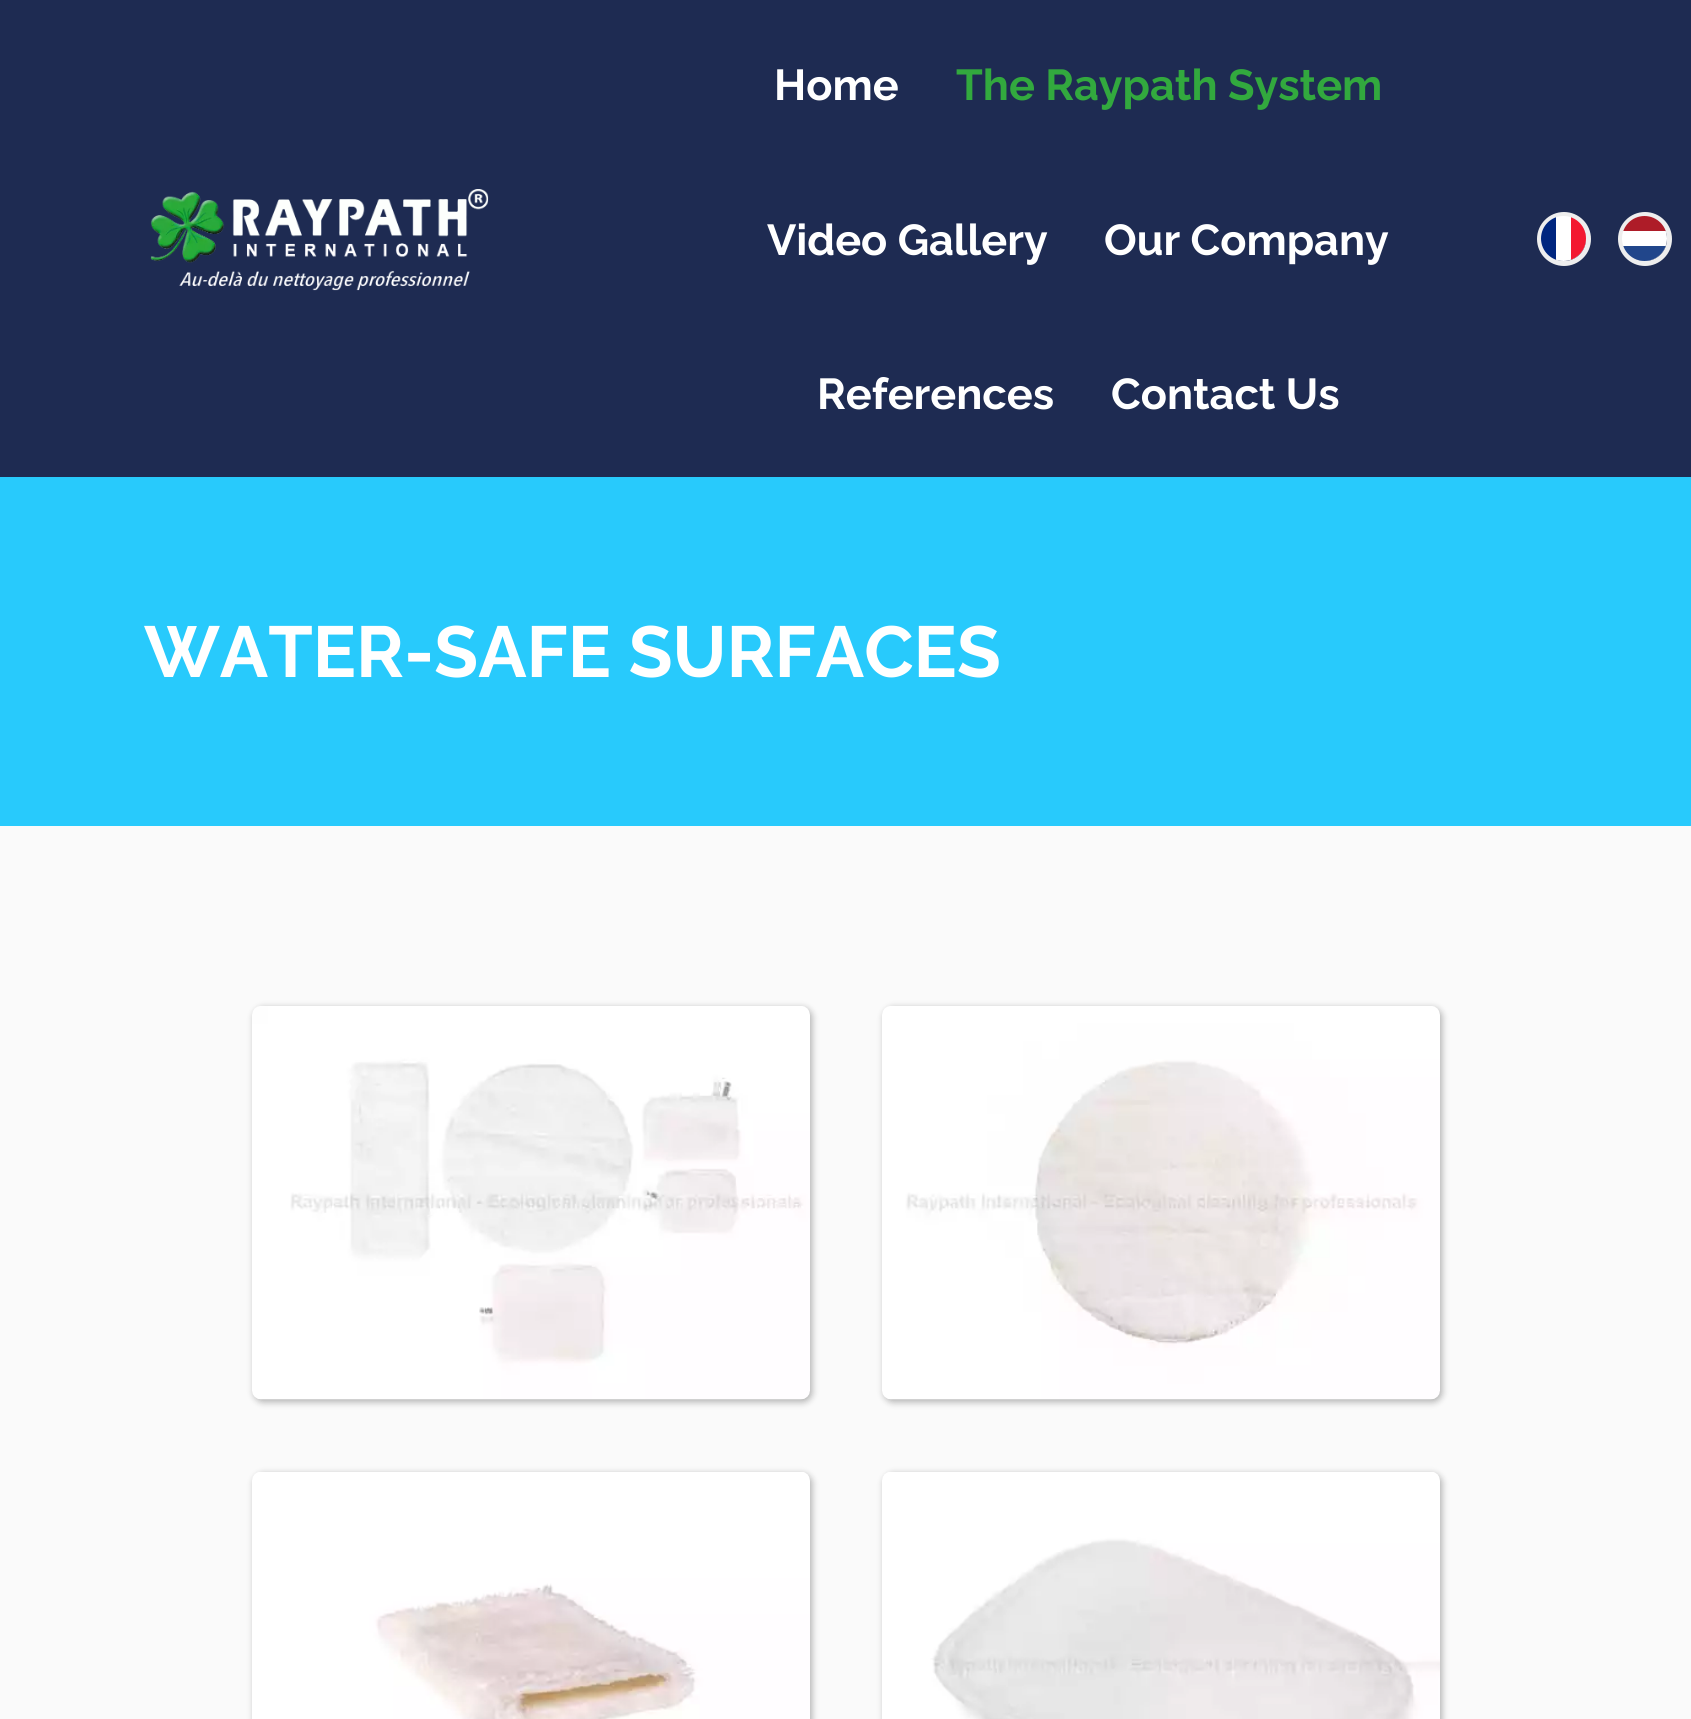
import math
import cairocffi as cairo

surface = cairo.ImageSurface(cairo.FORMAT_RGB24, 1691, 1719)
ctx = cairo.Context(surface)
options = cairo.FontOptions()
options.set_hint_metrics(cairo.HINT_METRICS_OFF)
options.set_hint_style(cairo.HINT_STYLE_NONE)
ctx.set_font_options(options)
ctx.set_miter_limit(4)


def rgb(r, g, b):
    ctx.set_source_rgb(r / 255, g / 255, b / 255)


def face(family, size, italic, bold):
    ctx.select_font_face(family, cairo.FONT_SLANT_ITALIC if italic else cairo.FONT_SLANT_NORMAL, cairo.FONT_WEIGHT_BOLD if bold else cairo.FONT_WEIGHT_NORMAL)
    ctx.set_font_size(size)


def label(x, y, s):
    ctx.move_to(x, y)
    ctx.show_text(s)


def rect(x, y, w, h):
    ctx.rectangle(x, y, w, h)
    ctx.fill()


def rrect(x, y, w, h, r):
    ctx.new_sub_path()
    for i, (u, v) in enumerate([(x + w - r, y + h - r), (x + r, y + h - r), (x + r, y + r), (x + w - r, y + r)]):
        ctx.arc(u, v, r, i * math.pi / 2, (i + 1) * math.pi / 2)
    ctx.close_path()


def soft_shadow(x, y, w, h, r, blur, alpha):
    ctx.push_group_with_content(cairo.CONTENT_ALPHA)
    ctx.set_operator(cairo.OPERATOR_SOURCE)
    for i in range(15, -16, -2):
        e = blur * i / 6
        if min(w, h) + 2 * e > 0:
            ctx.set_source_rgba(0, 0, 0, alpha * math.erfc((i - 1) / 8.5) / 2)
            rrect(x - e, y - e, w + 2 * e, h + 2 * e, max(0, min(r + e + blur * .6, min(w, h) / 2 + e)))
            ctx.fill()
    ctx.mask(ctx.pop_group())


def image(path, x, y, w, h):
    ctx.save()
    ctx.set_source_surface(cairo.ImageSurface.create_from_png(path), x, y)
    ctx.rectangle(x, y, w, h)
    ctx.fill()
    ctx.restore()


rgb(250, 250, 250)
ctx.paint()
rgb(30, 43, 82)
rect(0, 0, 1691, 477)
image('image0.png', 150, 189, 339, 102)
face('Raleway', 43.25, 0, 1)
rgb(255, 255, 255)
label(774, 100, 'Home')
rgb(50, 169, 62)
label(956, 100, 'The Raypath System')
rgb(255, 255, 255)
label(767, 255, 'Video Gallery')
label(1104, 255, 'Our Company')
label(817, 409, 'References')
label(1111, 409, 'Contact Us')
ctx.new_path()
ctx.arc(1564, 239, 24.5, 0, 2 * math.pi)
rgb(238, 238, 238)
ctx.set_line_width(5)
ctx.stroke()
rgb(255, 255, 255)
ctx.arc(1563.5, 238.5, 22.5, 0, 2 * math.pi)
ctx.fill()
ctx.save()
rrect(1541, 216, 45, 45, 22.5)
ctx.clip()
rgb(0, 38, 127)
rect(1541, 217, 15, 43)
rgb(243, 24, 48)
rect(1571, 217, 15, 43)
ctx.restore()
ctx.arc(1645, 239, 24.5, 0, 2 * math.pi)
rgb(238, 238, 238)
ctx.stroke()
rgb(255, 255, 255)
ctx.arc(1644.5, 238.5, 22.5, 0, 2 * math.pi)
ctx.fill()
ctx.save()
rrect(1622, 216, 45, 45, 22.5)
ctx.clip()
rgb(33, 70, 139)
rect(1623, 246, 43, 15)
rgb(174, 28, 40)
rect(1623, 216, 43, 15)
ctx.restore()
rgb(40, 202, 252)
rect(0, 477, 1691, 349)
face('Raleway', 72, 0, 1)
rgb(255, 255, 255)
label(144, 677, 'WATER-SAFE SURFACES')
rgb(0, 0, 0)
soft_shadow(254, 1008, 558, 394, 9, 3.5, 0.3)
image('image1.png', 252, 1006, 558, 394)
soft_shadow(884, 1008, 558, 394, 9, 3.5, 0.3)
image('image2.png', 882, 1006, 558, 394)
soft_shadow(254, 1474, 558, 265, 9, 3.5, 0.3)
image('image3.png', 252, 1472, 558, 247)
soft_shadow(884, 1474, 558, 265, 9, 3.5, 0.3)
image('image4.png', 882, 1472, 558, 247)
surface.write_to_png('render.png')
